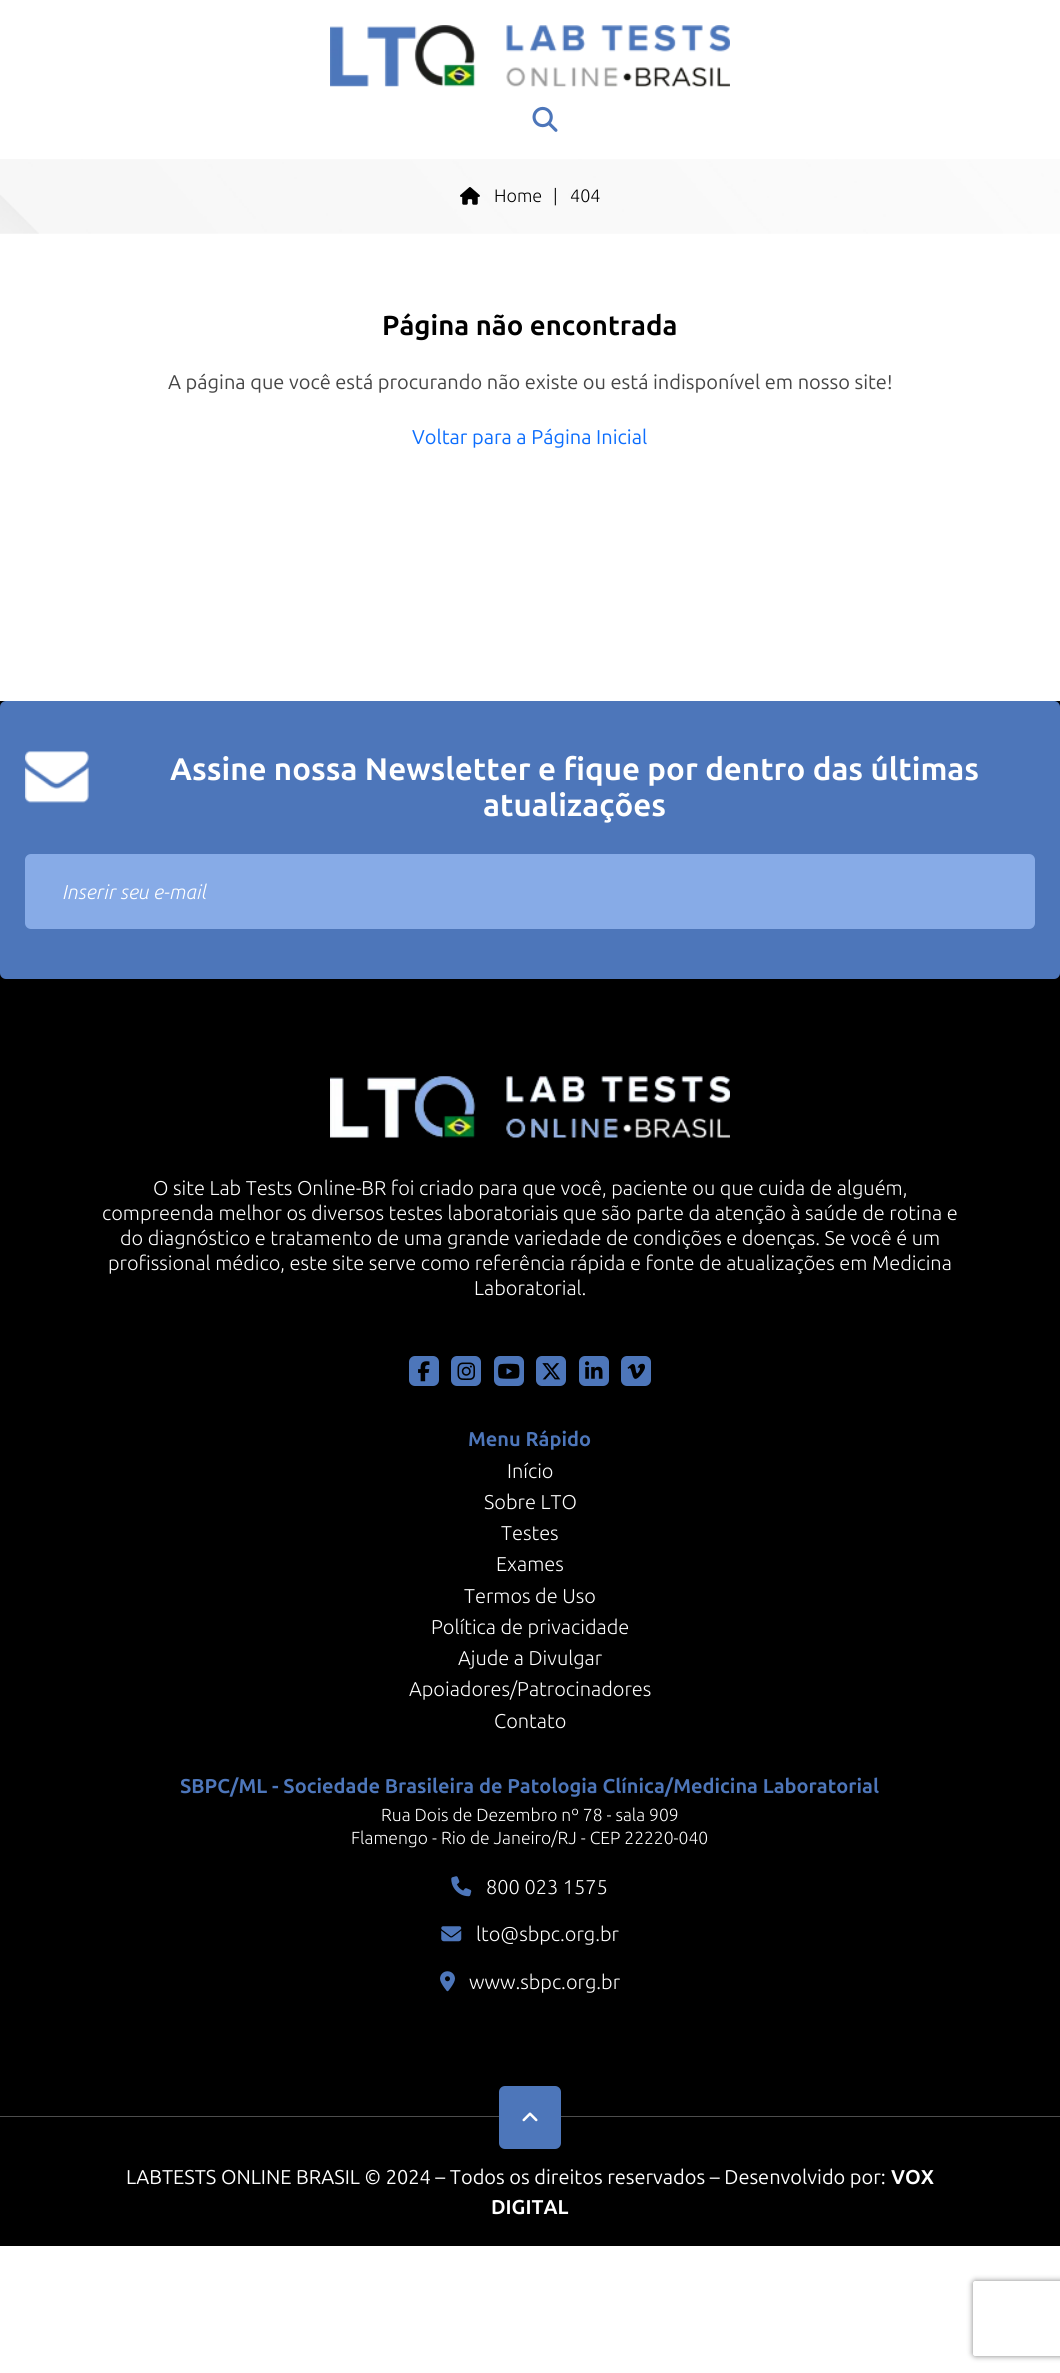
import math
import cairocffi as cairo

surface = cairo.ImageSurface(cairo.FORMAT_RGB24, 1060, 2373)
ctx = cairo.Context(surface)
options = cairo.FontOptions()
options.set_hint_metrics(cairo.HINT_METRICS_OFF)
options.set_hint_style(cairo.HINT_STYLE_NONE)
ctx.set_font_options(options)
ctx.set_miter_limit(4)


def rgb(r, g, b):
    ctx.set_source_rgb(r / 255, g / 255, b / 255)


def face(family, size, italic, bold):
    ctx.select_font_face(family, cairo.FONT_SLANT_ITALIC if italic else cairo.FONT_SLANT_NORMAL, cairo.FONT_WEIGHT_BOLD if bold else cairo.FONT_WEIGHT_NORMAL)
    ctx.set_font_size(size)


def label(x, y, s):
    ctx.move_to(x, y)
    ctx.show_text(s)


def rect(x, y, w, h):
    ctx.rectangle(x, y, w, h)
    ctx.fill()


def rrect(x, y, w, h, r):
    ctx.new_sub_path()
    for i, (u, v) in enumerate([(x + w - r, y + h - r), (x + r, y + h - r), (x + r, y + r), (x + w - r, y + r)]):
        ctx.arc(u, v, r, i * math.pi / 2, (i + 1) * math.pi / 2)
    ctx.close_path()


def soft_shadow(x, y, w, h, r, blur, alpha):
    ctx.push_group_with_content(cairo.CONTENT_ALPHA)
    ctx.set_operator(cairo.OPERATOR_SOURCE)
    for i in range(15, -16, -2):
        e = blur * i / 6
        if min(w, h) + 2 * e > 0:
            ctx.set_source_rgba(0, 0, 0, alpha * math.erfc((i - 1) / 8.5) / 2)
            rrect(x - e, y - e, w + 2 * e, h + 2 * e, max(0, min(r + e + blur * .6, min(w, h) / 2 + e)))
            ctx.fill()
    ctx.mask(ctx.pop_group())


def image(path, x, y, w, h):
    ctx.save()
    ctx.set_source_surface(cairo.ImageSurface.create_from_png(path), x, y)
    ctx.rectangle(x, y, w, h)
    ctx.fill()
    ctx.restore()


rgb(255, 255, 255)
ctx.paint()
image('image0.png', 330, 25, 400, 62)
image('image1.png', 532, 106, 26, 26)
image('image2.png', 0, 159, 1060, 75)
image('image3.png', 460, 187, 20, 18)
face('Ubuntu Light', 18, 0, 0)
rgb(0, 0, 0)
label(494, 202, 'Home')
label(553, 202, '|')
label(570, 202, '404')
face('Ubuntu', 27.5, 0, 1)
label(382, 335, 'Página não encontrada')
face('Ubuntu', 20, 0, 0)
rgb(70, 70, 70)
label(168, 389, 'A página que você está procurando não existe ou está indisponível em nosso site!')
rgb(13, 110, 253)
label(412, 444, 'Voltar para a Página Inicial')
rgb(0, 0, 0)
rect(0, 701, 1060, 1545)
rgb(77, 118, 186)
rrect(0, 701, 1060, 278, 6)
ctx.fill()
image('image4.png', 25, 751, 64, 52)
face('Ubuntu', 31.25, 0, 1)
rgb(255, 255, 255)
label(170, 780, 'Assine nossa Newsletter e fique por dentro das últimas')
label(483, 816, 'atualizações')
rgb(135, 171, 231)
rrect(25, 854, 1010, 75, 6)
ctx.fill()
face('Ubuntu Light', 20, 1, 0)
rgb(255, 255, 255)
label(63, 899, 'Inserir seu e-mail')
image('image5.png', 330, 1076, 400, 62)
face('Ubuntu Light', 20, 0, 0)
label(153, 1195, 'O site Lab Tests Online-BR foi criado para que você, paciente ou que cuida de alguém,')
label(102, 1220, 'compreenda melhor os diversos testes laboratoriais que são parte da atenção à saúde de rotina e')
label(120, 1245, 'do diagnóstico e tratamento de uma grande variedade de condições e doenças. Se você é um')
label(108, 1270, 'profissional médico, este site serve como referência rápida e fonte de atualizações em Medicina')
label(474, 1295, 'Laboratorial.')
rgb(77, 118, 186)
rrect(409, 1356, 30, 30, 6)
ctx.fill()
image('image6.png', 418, 1361, 12, 21)
rrect(451, 1356, 30, 30, 6)
ctx.fill()
image('image7.png', 457, 1362, 18, 18)
rrect(494, 1356, 30, 30, 6)
ctx.fill()
image('image8.png', 498, 1363, 22, 16)
rrect(536, 1356, 30, 30, 6)
ctx.fill()
image('image9.png', 542, 1363, 19, 17)
rrect(579, 1356, 30, 30, 6)
ctx.fill()
image('image10.png', 585, 1361, 18, 18)
rrect(621, 1356, 30, 30, 6)
ctx.fill()
image('image11.png', 627, 1363, 18, 16)
face('Ubuntu', 20, 0, 1)
label(468, 1446, 'Menu Rápido')
face('Ubuntu Light', 20, 0, 0)
rgb(255, 255, 255)
label(507, 1478, 'Início')
label(484, 1509, 'Sobre LTO')
label(501, 1540, 'Testes')
label(496, 1571, 'Exames')
label(464, 1603, 'Termos de Uso')
label(431, 1634, 'Política de privacidade')
label(458, 1665, 'Ajude a Divulgar')
label(409, 1696, 'Apoiadores/Patrocinadores')
label(494, 1728, 'Contato')
face('Ubuntu', 20, 0, 1)
rgb(77, 118, 186)
label(180, 1793, 'SBPC/ML - Sociedade Brasileira de Patologia Clínica/Medicina Laboratorial')
face('Ubuntu Light', 17.5, 0, 0)
rgb(255, 255, 255)
label(381, 1821, 'Rua Dois de Dezembro nº 78 - sala 909')
label(351, 1844, 'Flamengo - Rio de Janeiro/RJ - CEP 22220-040')
image('image12.png', 451, 1876, 21, 21)
face('Ubuntu Light', 20, 0, 0)
label(486, 1894, '800 023 1575')
image('image13.png', 441, 1926, 21, 16)
label(476, 1941, 'lto@sbpc.org.br')
image('image14.png', 440, 1971, 15, 21)
label(469, 1989, 'www.sbpc.org.br')
rgb(77, 77, 77)
rect(0, 2116, 1060, 1)
rgb(77, 118, 186)
rrect(499, 2086, 62, 63, 6)
ctx.fill()
image('image15.png', 522, 2112, 16, 10)
face('Ubuntu', 20, 0, 0)
rgb(255, 255, 255)
label(126, 2184, 'LABTESTS ONLINE BRASIL © 2024 – Todos os direitos reservados – Desenvolvido por:')
face('Ubuntu', 20, 0, 1)
label(891, 2184, 'VOX')
label(491, 2214, 'DIGITAL')
ctx.save()
ctx.set_fill_rule(cairo.FILL_RULE_EVEN_ODD)
ctx.new_path()
ctx.move_to(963, 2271)
ctx.line_to(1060, 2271)
ctx.line_to(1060, 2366)
ctx.line_to(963, 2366)
ctx.close_path()
ctx.move_to(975.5, 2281)
ctx.line_to(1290.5, 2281)
ctx.curve_to(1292, 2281, 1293, 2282, 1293, 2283.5)
ctx.line_to(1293, 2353.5)
ctx.curve_to(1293, 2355, 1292, 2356, 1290.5, 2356)
ctx.line_to(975.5, 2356)
ctx.curve_to(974, 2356, 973, 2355, 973, 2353.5)
ctx.line_to(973, 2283.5)
ctx.curve_to(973, 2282, 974, 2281, 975.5, 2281)
ctx.close_path()
ctx.clip()
rgb(128, 128, 128)
soft_shadow(973, 2281, 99, 75, 2.5, 3, 1)
ctx.restore()
surface.write_to_png('render.png')
